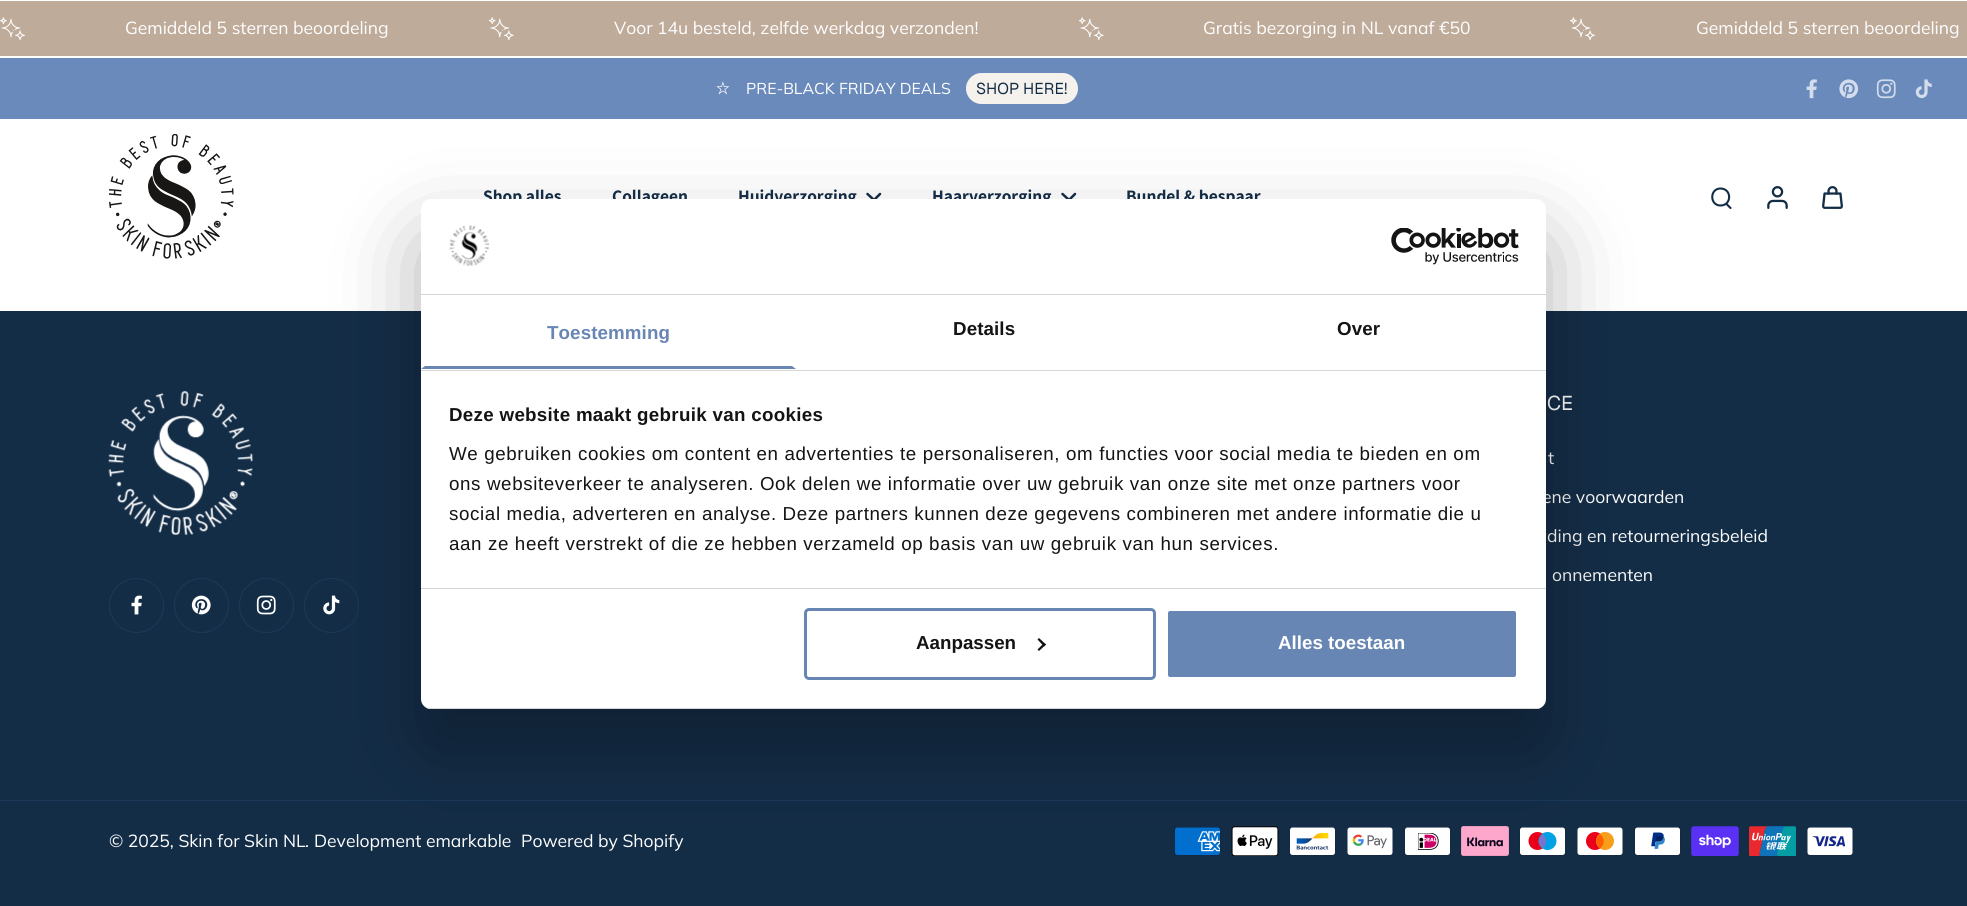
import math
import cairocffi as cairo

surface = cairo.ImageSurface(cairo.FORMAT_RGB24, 1967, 906)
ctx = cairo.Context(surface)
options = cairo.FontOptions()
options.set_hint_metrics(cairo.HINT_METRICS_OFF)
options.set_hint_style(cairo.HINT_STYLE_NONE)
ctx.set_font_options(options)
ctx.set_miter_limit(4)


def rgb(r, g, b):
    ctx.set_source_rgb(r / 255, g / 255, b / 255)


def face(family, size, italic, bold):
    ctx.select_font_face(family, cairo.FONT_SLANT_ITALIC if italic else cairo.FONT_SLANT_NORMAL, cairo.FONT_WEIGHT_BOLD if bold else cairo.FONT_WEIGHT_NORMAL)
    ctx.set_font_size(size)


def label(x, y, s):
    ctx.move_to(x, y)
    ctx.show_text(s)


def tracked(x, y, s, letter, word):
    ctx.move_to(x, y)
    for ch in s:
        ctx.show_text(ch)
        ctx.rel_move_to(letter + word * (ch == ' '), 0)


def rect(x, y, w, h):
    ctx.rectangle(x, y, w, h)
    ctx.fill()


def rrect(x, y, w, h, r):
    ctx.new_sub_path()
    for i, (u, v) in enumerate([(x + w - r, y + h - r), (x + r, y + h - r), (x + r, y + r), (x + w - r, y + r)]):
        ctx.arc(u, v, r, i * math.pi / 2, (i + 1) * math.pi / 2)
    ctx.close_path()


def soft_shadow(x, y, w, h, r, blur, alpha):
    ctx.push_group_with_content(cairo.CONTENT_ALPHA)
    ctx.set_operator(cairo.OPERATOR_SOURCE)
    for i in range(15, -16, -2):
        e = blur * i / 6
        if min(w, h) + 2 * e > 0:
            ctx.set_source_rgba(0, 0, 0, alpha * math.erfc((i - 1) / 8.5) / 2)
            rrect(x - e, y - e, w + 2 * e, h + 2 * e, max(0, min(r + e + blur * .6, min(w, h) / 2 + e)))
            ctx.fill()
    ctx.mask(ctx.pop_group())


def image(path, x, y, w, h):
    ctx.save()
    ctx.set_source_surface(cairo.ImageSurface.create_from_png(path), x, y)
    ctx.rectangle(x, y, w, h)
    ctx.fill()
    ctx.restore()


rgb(255, 255, 255)
ctx.paint()
rgb(190, 171, 154)
rect(0, 1, 1967, 55)
image('image0.png', 0, 17, 25, 24)
face('Muli', 17.5, 0, 0)
rgb(255, 255, 255)
label(125, 34, 'Gemiddeld 5 sterren beoordeling')
image('image1.png', 489, 17, 25, 24)
label(614, 34, 'Voor 14u besteld, zelfde werkdag verzonden!')
image('image1.png', 1079, 17, 25, 24)
label(1203, 34, 'Gratis bezorging in NL vanaf €50')
image('image0.png', 1570, 17, 25, 24)
label(1696, 34, 'Gemiddeld 5 sterren beoordeling')
rgb(106, 138, 188)
rect(0, 58, 1967, 61)
image('image2.png', 716, 81, 14, 14)
face('Muli', 15.75, 0, 0)
rgb(255, 255, 255)
label(746, 94, 'PRE-BLACK FRIDAY DEALS')
rgb(245, 242, 238)
rrect(966, 73, 112, 31, 15.5)
ctx.fill()
face('Geist', 15.75, 0, 0)
rgb(20, 45, 71)
label(976, 94, 'SHOP HERE!')
image('image3.png', 1806, 79, 11, 20)
image('image4.png', 1839, 79, 20, 20)
image('image5.png', 1876, 79, 20, 20)
image('image6.png', 1915, 79, 17, 20)
image('image7.png', 109, 134, 125, 125)
face('Assistant', 17.5, 0, 1)
label(483, 202, 'Shop alles')
label(612, 202, 'Collageen')
label(738, 202, 'Huidverzorging')
ctx.new_path()
ctx.move_to(867.5, 194)
ctx.line_to(874, 200)
ctx.line_to(880, 194)
ctx.set_line_width(2.5)
ctx.set_line_cap(cairo.LINE_CAP_ROUND)
ctx.set_line_join(cairo.LINE_JOIN_ROUND)
ctx.stroke()
label(932, 202, 'Haarverzorging')
ctx.new_path()
ctx.move_to(1062.5, 194)
ctx.line_to(1069, 200)
ctx.line_to(1075, 194)
ctx.stroke()
label(1126, 202, 'Bundel & bespaar')
ctx.new_path()
ctx.move_to(1720.5, 205.5)
ctx.curve_to(1732, 205.5, 1732, 188.5, 1720.5, 188.5)
ctx.curve_to(1709.5, 188.5, 1709.5, 205.5, 1720.5, 205.5)
ctx.close_path()
ctx.set_line_width(2.1)
ctx.set_line_cap(cairo.LINE_CAP_BUTT)
ctx.set_line_join(cairo.LINE_JOIN_MITER)
ctx.stroke()
ctx.new_path()
ctx.move_to(1726.5, 204)
ctx.line_to(1730.5, 208)
ctx.set_line_cap(cairo.LINE_CAP_ROUND)
ctx.stroke()
image('image8.png', 1767, 186, 21, 23)
image('image9.png', 1822, 186, 21, 23)
rect(0, 311, 1967, 595)
rgb(26, 57, 89)
rect(0, 800, 1967, 1)
image('image10.png', 108, 391, 145, 144)
ctx.arc(136.5, 605.5, 27, 0, 2 * math.pi)
ctx.set_line_width(1)
ctx.set_line_cap(cairo.LINE_CAP_BUTT)
ctx.stroke()
image('image11.png', 131, 595, 11, 20)
ctx.arc(201.5, 605.5, 27, 0, 2 * math.pi)
ctx.stroke()
image('image12.png', 191, 595, 20, 20)
ctx.arc(266.5, 605.5, 27, 0, 2 * math.pi)
ctx.stroke()
image('image13.png', 256, 595, 20, 20)
ctx.arc(331.5, 605.5, 27, 0, 2 * math.pi)
ctx.stroke()
image('image14.png', 323, 595, 17, 20)
face('Geist', 20, 0, 0)
rgb(255, 255, 255)
label(1547, 410, 'CE')
face('Muli', 17.5, 0, 0)
label(1548, 464, 't')
label(1542, 503, 'ene voorwaarden')
label(1547, 542, 'ding en retourneringsbeleid')
label(1552, 581, 'onnementen')
label(109, 847, '© 2025, Skin for Skin NL')
label(305, 847, '.')
label(314, 847, 'Development emarkable')
label(521, 847, 'Powered by Shopify')
image('image15.png', 1174, 827, 47, 29)
image('image16.png', 1231, 826, 48, 30)
image('image17.png', 1289, 827, 47, 29)
image('image18.png', 1347, 827, 46, 29)
image('image19.png', 1404, 827, 47, 29)
image('image20.png', 1461, 826, 48, 30)
image('image21.png', 1519, 827, 47, 29)
image('image22.png', 1577, 827, 46, 29)
image('image23.png', 1634, 827, 47, 29)
image('image24.png', 1691, 826, 48, 30)
image('image25.png', 1749, 826, 47, 30)
image('image26.png', 1807, 827, 46, 29)
rgb(0, 0, 0)
soft_shadow(421, 239, 1125, 510, 10, 42.5, 0.3)
rgb(255, 255, 255)
rrect(421, 199, 1125, 510, 10)
ctx.fill()
rgb(214, 214, 214)
rect(421, 294, 1125, 1)
image('image27.png', 449, 225, 41, 41)
image('image28.png', 1391, 228, 128, 37)
rect(421, 370, 1125, 1)
rgb(104, 134, 180)
ctx.new_path()
ctx.move_to(796, 369)
ctx.line_to(421, 369)
ctx.line_to(425, 366)
ctx.line_to(792, 366)
ctx.close_path()
ctx.fill()
face('Liberation Sans', 18.75, 0, 1)
tracked(547, 339, 'Toestemming', 0.1, 0)
rgb(20, 20, 20)
tracked(953, 335, 'Details', 0.1, 0)
tracked(1337, 335, 'Over', 0.1, 0)
rgb(214, 214, 214)
rect(421, 588, 1125, 1)
rgb(20, 20, 20)
tracked(449, 421, 'Deze website maakt gebruik van cookies', 0.3, 0)
face('Liberation Sans', 18.75, 0, 0)
tracked(449, 460, 'We gebruiken cookies om content en advertenties te personaliseren, om functies voor social media te bieden en om', 0.62, 0)
tracked(449, 490, 'ons websiteverkeer te analyseren. Ook delen we informatie over uw gebruik van onze site met onze partners voor', 0.62, 0)
tracked(449, 520, 'social media, adverteren en analyse. Deze partners kunnen deze gegevens combineren met andere informatie die u', 0.62, 0)
tracked(449, 550, 'aan ze heeft verstrekt of die ze hebben verzameld op basis van uw gebruik van hun services.', 0.62, 0)
ctx.save()
rrect(421, 199, 1125, 510, 10)
ctx.clip()
rgb(214, 214, 214)
rect(421, 708, 1125, 1)
ctx.restore()
rrect(805.5, 609.5, 349, 69, 3.5)
rgb(104, 134, 180)
ctx.set_line_width(3)
ctx.stroke()
face('Liberation Sans', 18.75, 0, 1)
rgb(20, 20, 20)
label(916, 649, 'Aanpassen')
ctx.new_path()
ctx.move_to(1039, 638)
ctx.line_to(1046, 644.5)
ctx.line_to(1044, 646.5)
ctx.line_to(1037.5, 639.5)
ctx.close_path()
ctx.fill()
ctx.new_path()
ctx.move_to(1044, 643)
ctx.line_to(1046, 644.5)
ctx.line_to(1039, 651)
ctx.line_to(1037.5, 649.5)
ctx.close_path()
ctx.fill()
rgb(104, 134, 180)
rrect(1166.5, 609.5, 351, 69, 3.5)
ctx.fill_preserve()
rgb(255, 255, 255)
ctx.stroke()
label(1278, 649, 'Alles toestaan')
surface.write_to_png('render.png')
